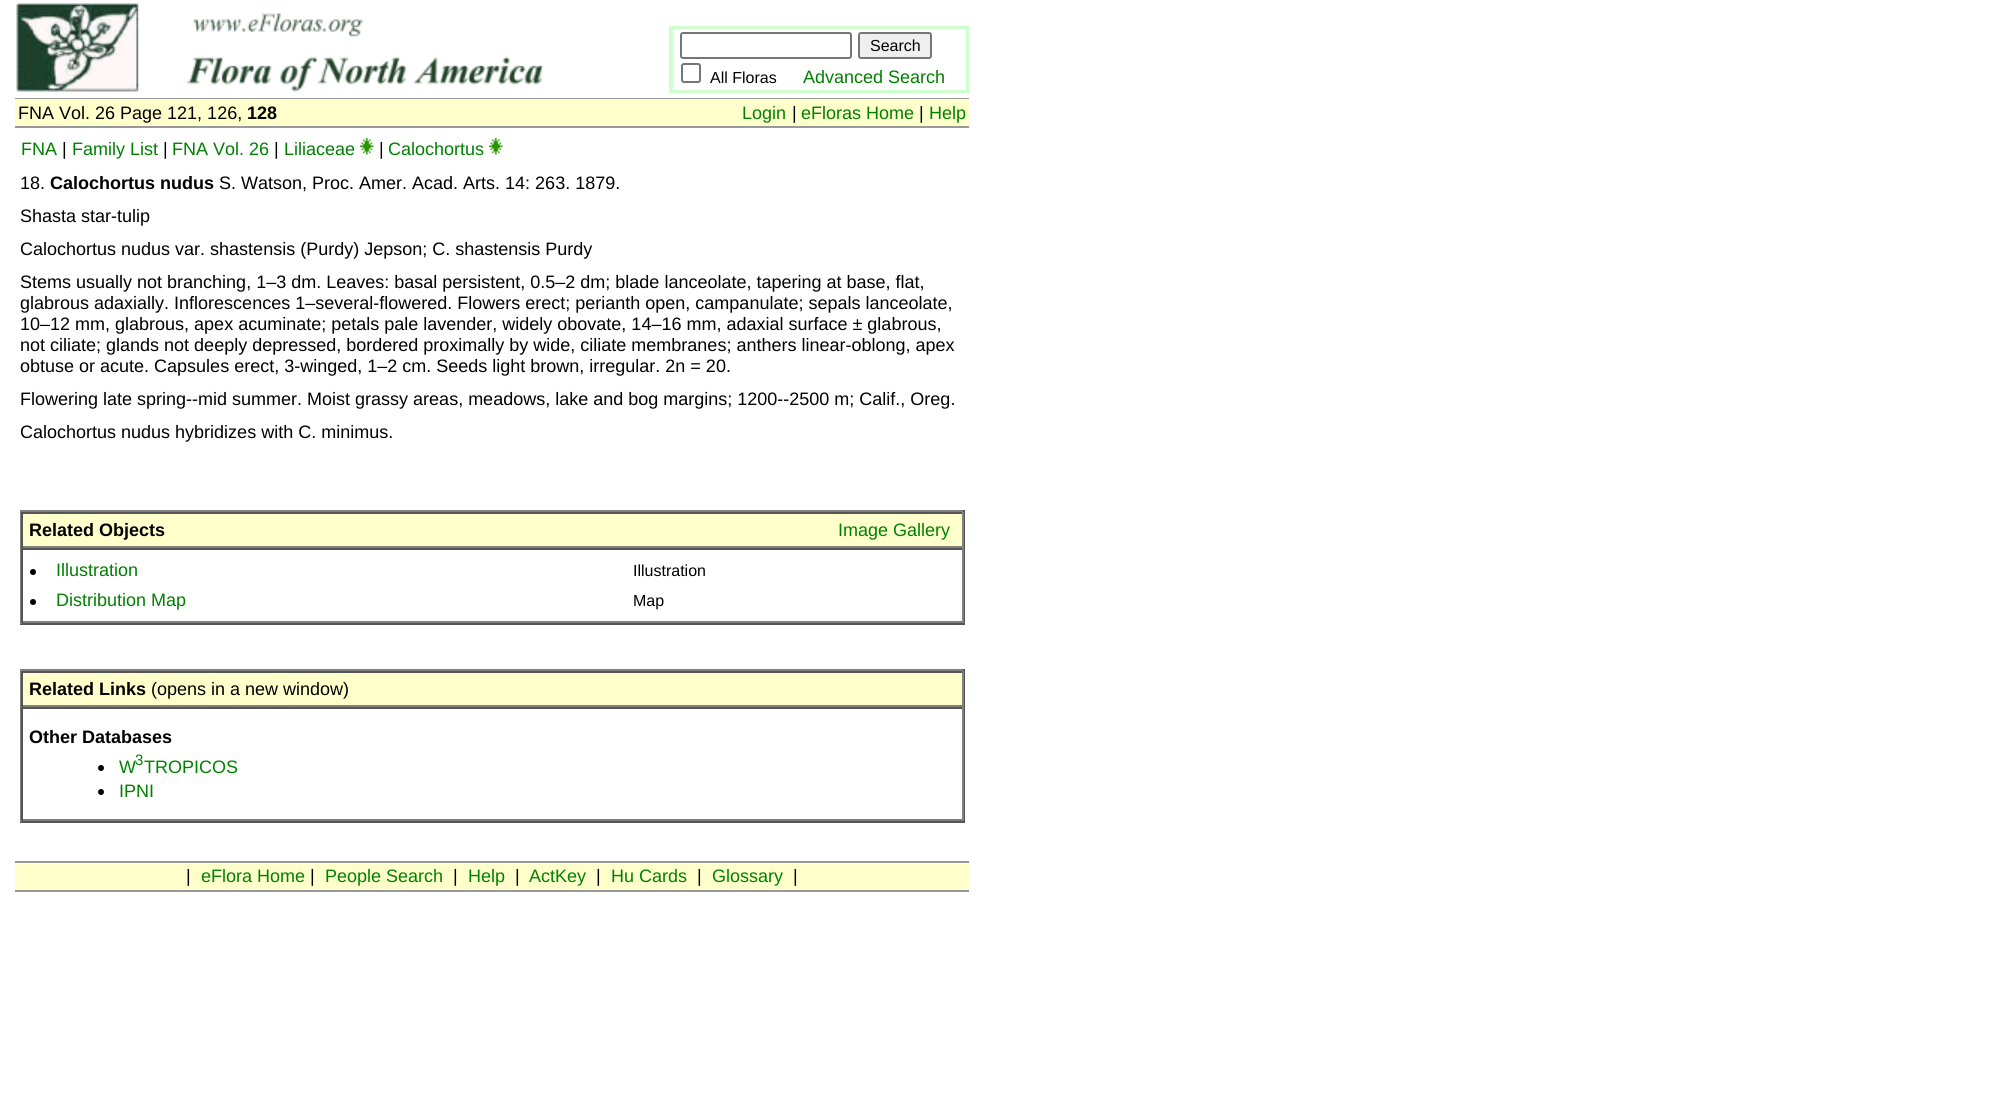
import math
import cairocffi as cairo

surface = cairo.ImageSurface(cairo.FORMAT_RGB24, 1990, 1102)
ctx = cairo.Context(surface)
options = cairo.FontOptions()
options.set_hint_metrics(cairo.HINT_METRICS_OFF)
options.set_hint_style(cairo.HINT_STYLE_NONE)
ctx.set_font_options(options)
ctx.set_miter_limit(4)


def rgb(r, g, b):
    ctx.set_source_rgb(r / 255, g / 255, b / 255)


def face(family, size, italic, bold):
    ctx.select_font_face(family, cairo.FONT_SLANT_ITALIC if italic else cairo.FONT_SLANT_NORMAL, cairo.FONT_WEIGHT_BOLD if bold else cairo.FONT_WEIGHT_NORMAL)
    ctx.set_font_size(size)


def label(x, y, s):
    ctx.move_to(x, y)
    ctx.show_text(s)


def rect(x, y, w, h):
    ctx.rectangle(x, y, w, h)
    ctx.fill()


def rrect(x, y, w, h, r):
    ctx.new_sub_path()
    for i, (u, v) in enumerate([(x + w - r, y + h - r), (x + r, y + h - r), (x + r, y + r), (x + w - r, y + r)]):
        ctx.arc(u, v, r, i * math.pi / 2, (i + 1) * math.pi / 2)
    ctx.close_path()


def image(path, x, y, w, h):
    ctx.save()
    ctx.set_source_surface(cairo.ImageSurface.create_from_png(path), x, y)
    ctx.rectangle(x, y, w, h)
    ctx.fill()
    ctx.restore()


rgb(255, 255, 255)
ctx.paint()
image('image0.png', 16, 3, 528, 89)
ctx.rectangle(670, 27, 298, 65)
rgb(204, 255, 204)
ctx.stroke()
ctx.rectangle(672, 28, 295, 63)
ctx.stroke()
rrect(681, 33, 170, 25, 2)
rgb(118, 118, 118)
ctx.stroke()
rgb(239, 239, 239)
rrect(859, 33, 72, 25, 2)
ctx.fill_preserve()
rgb(118, 118, 118)
ctx.stroke()
face('Liberation Sans', 16, 0, 0)
rgb(0, 0, 0)
label(870, 51, 'Search')
rrect(682, 64, 18, 18, 2)
rgb(118, 118, 118)
ctx.stroke()
rgb(0, 0, 0)
label(710, 83, 'All Floras')
face('Liberation Sans', 18, 0, 0)
rgb(0, 128, 0)
label(803, 83, 'Advanced Search')
rgb(153, 153, 153)
rect(15, 98, 954, 1)
rgb(255, 255, 204)
rect(15, 99, 954, 27)
rgb(0, 0, 0)
label(18, 119, 'FNA Vol. 26 Page 121, 126,')
face('Liberation Sans', 18, 0, 1)
label(247, 119, '128')
face('Liberation Sans', 18, 0, 0)
rgb(0, 128, 0)
label(742, 119, 'Login')
rgb(0, 0, 0)
label(792, 119, '|')
rgb(0, 128, 0)
label(801, 119, 'eFloras Home')
rgb(0, 0, 0)
label(919, 119, '|')
rgb(0, 128, 0)
label(929, 119, 'Help')
rgb(153, 153, 153)
rect(15, 126, 954, 2)
rgb(0, 128, 0)
label(21, 155, 'FNA')
rgb(0, 0, 0)
label(62, 155, '|')
rgb(0, 128, 0)
label(72, 155, 'Family List')
rgb(0, 0, 0)
label(163, 155, '|')
rgb(0, 128, 0)
label(172, 155, 'FNA Vol. 26')
rgb(0, 0, 0)
label(274, 155, '|')
rgb(0, 128, 0)
label(284, 155, 'Liliaceae')
image('image1.png', 360, 138, 14, 17)
rgb(0, 0, 0)
label(379, 155, '|')
rgb(0, 128, 0)
label(388, 155, 'Calochortus')
image('image1.png', 489, 138, 14, 17)
rgb(0, 0, 0)
label(20, 189, '18.')
face('Liberation Sans', 18, 0, 1)
label(50, 189, 'Calochortus nudus')
face('Liberation Sans', 18, 0, 0)
label(219, 189, 'S. Watson, Proc. Amer. Acad. Arts. 14: 263. 1879.')
label(20, 222, 'Shasta star-tulip')
label(20, 255, 'Calochortus nudus var. shastensis (Purdy) Jepson; C. shastensis Purdy')
label(20, 288, 'Stems usually not branching, 1–3 dm. Leaves: basal persistent, 0.5–2 dm; blade lanceolate, tapering at base, flat,')
label(20, 309, 'glabrous adaxially. Inflorescences 1–several-flowered. Flowers erect; perianth open, campanulate; sepals lanceolate,')
label(20, 330, '10–12 mm, glabrous, apex acuminate; petals pale lavender, widely obovate, 14–16 mm, adaxial surface ± glabrous,')
label(20, 351, 'not ciliate; glands not deeply depressed, bordered proximally by wide, ciliate membranes; anthers linear-oblong, apex')
label(20, 372, 'obtuse or acute. Capsules erect, 3-winged, 1–2 cm. Seeds light brown, irregular. 2n = 20.')
label(20, 405, 'Flowering late spring--mid summer. Moist grassy areas, meadows, lake and bog margins; 1200--2500 m; Calif., Oreg.')
label(20, 438, 'Calochortus nudus hybridizes with C. minimus.')
rgb(128, 128, 128)
rect(20, 510, 945, 2)
rgb(85, 85, 85)
rect(963, 510, 2, 114)
rect(20, 623, 945, 2)
rgb(128, 128, 128)
rect(20, 510, 2, 114)
rgb(255, 255, 204)
rect(23, 514, 939, 32)
rgb(85, 85, 85)
rect(21, 512, 942, 2)
rgb(128, 128, 128)
rect(962, 512, 2, 36)
rect(21, 546, 942, 2)
rgb(85, 85, 85)
rect(21, 512, 2, 36)
face('Liberation Sans', 18, 0, 1)
rgb(0, 0, 0)
label(29, 536, 'Related Objects')
face('Liberation Sans', 18, 0, 0)
rgb(0, 128, 0)
label(838, 536, 'Image Gallery')
rgb(85, 85, 85)
rect(21, 548, 942, 2)
rgb(128, 128, 128)
rect(962, 548, 2, 75)
rect(21, 621, 942, 2)
rgb(85, 85, 85)
rect(21, 548, 2, 75)
rgb(0, 0, 0)
ctx.new_path()
ctx.arc(33, 572, 3, 0, 2 * math.pi)
ctx.fill()
rgb(0, 128, 0)
label(56, 576, 'Illustration')
face('Liberation Sans', 16, 0, 0)
rgb(0, 0, 0)
label(633, 576, 'Illustration')
ctx.new_path()
ctx.arc(33, 602, 3, 0, 2 * math.pi)
ctx.fill()
face('Liberation Sans', 18, 0, 0)
rgb(0, 128, 0)
label(56, 606, 'Distribution Map')
face('Liberation Sans', 16, 0, 0)
rgb(0, 0, 0)
label(633, 606, 'Map')
rgb(128, 128, 128)
rect(20, 669, 945, 2)
rgb(85, 85, 85)
rect(963, 669, 2, 153)
rect(20, 821, 945, 2)
rgb(128, 128, 128)
rect(20, 669, 2, 153)
rgb(255, 255, 204)
rect(23, 673, 939, 32)
rgb(85, 85, 85)
rect(21, 671, 942, 2)
rgb(128, 128, 128)
rect(962, 671, 2, 36)
rect(21, 705, 942, 2)
rgb(85, 85, 85)
rect(21, 671, 2, 36)
face('Liberation Sans', 18, 0, 1)
rgb(0, 0, 0)
label(29, 695, 'Related Links')
face('Liberation Sans', 18, 0, 0)
label(151, 695, '(opens in a new window)')
rgb(85, 85, 85)
rect(21, 707, 942, 2)
rgb(128, 128, 128)
rect(962, 707, 2, 114)
rect(21, 819, 942, 2)
rgb(85, 85, 85)
rect(21, 707, 2, 114)
face('Liberation Sans', 18, 0, 1)
rgb(0, 0, 0)
label(29, 743, 'Other Databases')
ctx.new_path()
ctx.arc(101, 768, 3, 0, 2 * math.pi)
ctx.fill()
face('Liberation Sans', 18, 0, 0)
rgb(0, 128, 0)
label(119, 773, 'W')
face('Liberation Sans', 15, 0, 0)
label(135, 765, '3')
face('Liberation Sans', 18, 0, 0)
label(144, 773, 'TROPICOS')
rgb(0, 0, 0)
ctx.new_path()
ctx.arc(101, 792, 3, 0, 2 * math.pi)
ctx.fill()
rgb(0, 128, 0)
label(119, 797, 'IPNI')
rgb(153, 153, 153)
rect(15, 861, 954, 2)
rgb(255, 255, 204)
rect(15, 863, 954, 27)
rgb(0, 0, 0)
label(186, 882, '|')
rgb(0, 128, 0)
label(201, 882, 'eFlora Home')
rgb(0, 0, 0)
label(310, 882, '|')
rgb(0, 128, 0)
label(325, 882, 'People Search')
rgb(0, 0, 0)
label(453, 882, '|')
rgb(0, 128, 0)
label(468, 882, 'Help')
rgb(0, 0, 0)
label(515, 882, '|')
rgb(0, 128, 0)
label(529, 882, 'ActKey')
rgb(0, 0, 0)
label(596, 882, '|')
rgb(0, 128, 0)
label(611, 882, 'Hu Cards')
rgb(0, 0, 0)
label(697, 882, '|')
rgb(0, 128, 0)
label(712, 882, 'Glossary')
rgb(0, 0, 0)
label(793, 882, '|')
rgb(153, 153, 153)
rect(15, 890, 954, 2)
surface.write_to_png('render.png')
